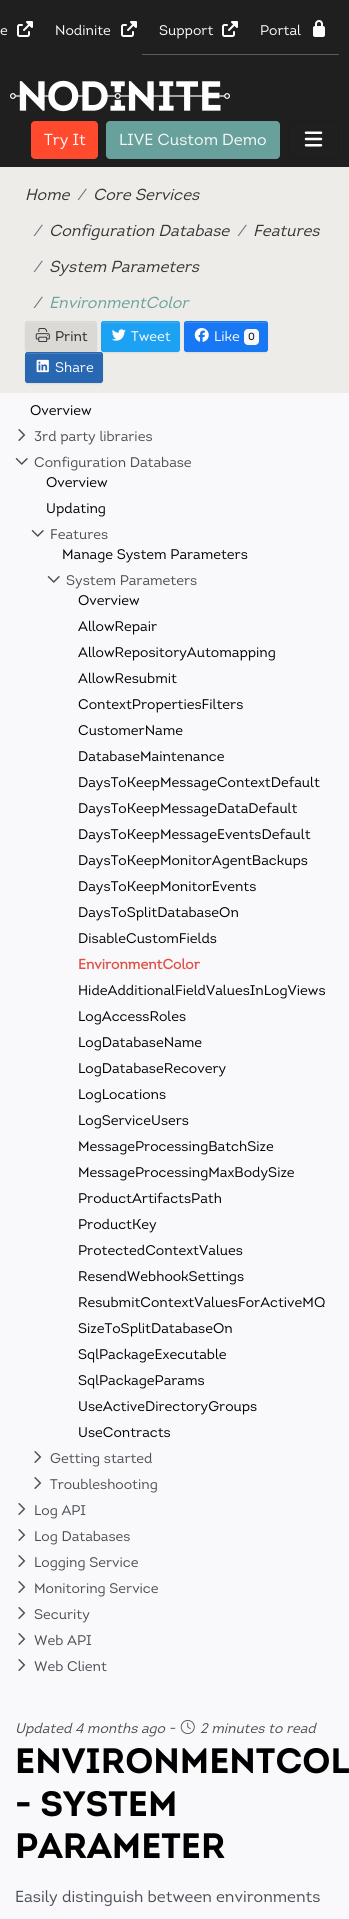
import math
import cairocffi as cairo

surface = cairo.ImageSurface(cairo.FORMAT_RGB24, 349, 1919)
ctx = cairo.Context(surface)
options = cairo.FontOptions()
options.set_hint_metrics(cairo.HINT_METRICS_OFF)
options.set_hint_style(cairo.HINT_STYLE_NONE)
ctx.set_font_options(options)
ctx.set_miter_limit(4)


def rgb(r, g, b):
    ctx.set_source_rgb(r / 255, g / 255, b / 255)


def face(family, size, italic, bold):
    ctx.select_font_face(family, cairo.FONT_SLANT_ITALIC if italic else cairo.FONT_SLANT_NORMAL, cairo.FONT_WEIGHT_BOLD if bold else cairo.FONT_WEIGHT_NORMAL)
    ctx.set_font_size(size)


def label(x, y, s):
    ctx.move_to(x, y)
    ctx.show_text(s)


def rect(x, y, w, h):
    ctx.rectangle(x, y, w, h)
    ctx.fill()


def rrect(x, y, w, h, r):
    ctx.new_sub_path()
    for i, (u, v) in enumerate([(x + w - r, y + h - r), (x + r, y + h - r), (x + r, y + r), (x + w - r, y + r)]):
        ctx.arc(u, v, r, i * math.pi / 2, (i + 1) * math.pi / 2)
    ctx.close_path()


def soft_shadow(x, y, w, h, r, blur, alpha):
    ctx.push_group_with_content(cairo.CONTENT_ALPHA)
    ctx.set_operator(cairo.OPERATOR_SOURCE)
    for i in range(15, -16, -2):
        e = blur * i / 6
        if min(w, h) + 2 * e > 0:
            ctx.set_source_rgba(0, 0, 0, alpha * math.erfc((i - 1) / 8.5) / 2)
            rrect(x - e, y - e, w + 2 * e, h + 2 * e, max(0, min(r + e + blur * .6, min(w, h) / 2 + e)))
            ctx.fill()
    ctx.mask(ctx.pop_group())


def image(path, x, y, w, h):
    ctx.save()
    ctx.set_source_surface(cairo.ImageSurface.create_from_png(path), x, y)
    ctx.rectangle(x, y, w, h)
    ctx.fill()
    ctx.restore()


rgb(249, 249, 251)
ctx.paint()
rgb(31, 31, 31)
rect(0, 0, 349, 167)
rgb(90, 90, 90)
rect(142, 54, 197, 1)
face('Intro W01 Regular', 14, 0, 0)
rgb(255, 255, 255)
label(0, 35, 'e')
image('image0.png', 17, 21, 16, 16)
label(55, 35, 'Nodinite')
image('image0.png', 121, 21, 16, 16)
label(159, 35, 'Support')
image('image0.png', 222, 21, 16, 16)
label(260, 35, 'Portal')
image('image1.png', 313, 20, 12, 17)
image('image2.png', 10, 80, 220, 32)
rgb(255, 74, 46)
rrect(31, 121, 67, 38, 4)
ctx.fill()
face('Intro W01 Regular', 16, 0, 0)
rgb(255, 255, 255)
label(44, 145, 'Try It')
rgb(104, 161, 155)
rrect(106.5, 121.5, 173, 37, 3.5)
ctx.fill_preserve()
ctx.set_line_width(1)
ctx.stroke()
rgb(249, 249, 251)
label(119, 145, 'LIVE Custom Demo')
rrect(288.5, 121.5, 50, 37, 3.5)
rgb(28, 28, 28)
ctx.stroke()
image('image3.png', 304, 131, 19, 16)
rgb(237, 236, 233)
rect(0, 167, 349, 226)
face('Intro W01 Regular', 16, 1, 0)
rgb(55, 53, 52)
label(25, 200, 'Home')
rgb(108, 117, 125)
label(77, 200, '/')
rgb(55, 53, 52)
label(93, 200, 'Core Services')
rgb(108, 117, 125)
label(33, 236, '/')
rgb(55, 53, 52)
label(49, 236, 'Configuration Database')
rgb(108, 117, 125)
label(237, 236, '/')
rgb(55, 53, 52)
label(253, 236, 'Features')
rgb(108, 117, 125)
label(33, 272, '/')
rgb(55, 53, 52)
label(49, 272, 'System Parameters')
rgb(108, 117, 125)
label(33, 308, '/')
rgb(104, 161, 155)
label(49, 308, 'EnvironmentColor')
rgb(0, 0, 0)
soft_shadow(25, 322, 72, 31, 3, 0.5, 0.07)
rgb(218, 217, 211)
rrect(25, 321, 72, 31, 3)
ctx.fill()
rgb(224, 223, 218)
ctx.new_path()
ctx.move_to(28, 323)
ctx.line_to(94, 323)
ctx.curve_to(95, 323, 96, 324, 96, 325)
ctx.curve_to(96, 319, 87, 322, 83, 322)
ctx.line_to(39, 322)
ctx.curve_to(35, 322, 26, 319, 26, 325)
ctx.curve_to(26, 324, 27, 323, 28, 323)
ctx.close_path()
ctx.fill()
rrect(25.5, 321.5, 71, 30, 2.5)
rgb(218, 217, 211)
ctx.stroke()
image('image4.png', 35, 328, 15, 14)
face('Intro W01 Regular', 14, 0, 0)
rgb(33, 37, 41)
label(55, 341, 'Print')
rgb(0, 0, 0)
soft_shadow(101, 322, 79, 31, 3, 0.5, 0.07)
rgb(29, 161, 242)
rrect(101, 321, 79, 31, 3)
ctx.fill()
rgb(63, 175, 244)
ctx.new_path()
ctx.move_to(104, 323)
ctx.line_to(177, 323)
ctx.curve_to(178, 323, 179, 324, 179, 325)
ctx.curve_to(179, 319, 168, 322, 165, 322)
ctx.line_to(116, 322)
ctx.curve_to(113, 322, 102, 319, 102, 325)
ctx.curve_to(102, 324, 103, 323, 104, 323)
ctx.close_path()
ctx.fill()
rrect(101.5, 321.5, 78, 30, 2.5)
rgb(29, 161, 242)
ctx.stroke()
image('image5.png', 112, 329, 14, 12)
rgb(255, 255, 255)
label(131, 341, 'Tweet')
rgb(0, 0, 0)
soft_shadow(184, 322, 84, 31, 3, 0.5, 0.07)
rgb(24, 119, 242)
rrect(184, 321, 84, 31, 3)
ctx.fill()
rgb(59, 139, 244)
ctx.new_path()
ctx.move_to(187, 323)
ctx.line_to(265, 323)
ctx.curve_to(266, 323, 267, 324, 267, 325)
ctx.curve_to(267, 318, 255, 322, 252, 322)
ctx.line_to(200, 322)
ctx.curve_to(197, 322, 185, 318, 185, 325)
ctx.curve_to(185, 324, 186, 323, 187, 323)
ctx.close_path()
ctx.fill()
rrect(184.5, 321.5, 83, 30, 2.5)
rgb(24, 119, 242)
ctx.stroke()
image('image6.png', 194, 328, 15, 14)
rgb(255, 255, 255)
label(214, 341, 'Like')
rgb(248, 249, 250)
rrect(244, 329, 15, 16, 4)
ctx.fill()
face('Intro W01 Regular', 10, 0, 1)
rgb(33, 37, 41)
label(248, 340, '0')
rgb(0, 0, 0)
soft_shadow(25, 353, 78, 31, 3, 0.5, 0.07)
rgb(40, 103, 178)
rrect(25, 352, 78, 31, 3)
ctx.fill()
rgb(72, 126, 190)
ctx.new_path()
ctx.move_to(28, 354)
ctx.line_to(100, 354)
ctx.curve_to(101, 354, 102, 355, 102, 356)
ctx.curve_to(102, 350, 91, 353, 88, 353)
ctx.line_to(40, 353)
ctx.curve_to(37, 353, 26, 350, 26, 356)
ctx.curve_to(26, 355, 27, 354, 28, 354)
ctx.close_path()
ctx.fill()
rrect(25.5, 352.5, 77, 30, 2.5)
rgb(40, 103, 178)
ctx.stroke()
image('image7.png', 36, 359, 13, 14)
face('Intro W01 Regular', 14, 0, 0)
rgb(255, 255, 255)
label(55, 372, 'Share')
rgb(0, 0, 0)
label(30, 415, 'Overview')
image('image8.png', 18, 429, 8, 12)
rgb(73, 77, 85)
label(34, 441, '3rd party libraries')
image('image9.png', 15, 458, 13, 7)
label(34, 467, 'Configuration Database')
rgb(0, 0, 0)
label(46, 487, 'Overview')
label(46, 513, 'Updating')
image('image9.png', 31, 530, 13, 7)
rgb(73, 77, 85)
label(50, 539, 'Features')
rgb(0, 0, 0)
label(62, 559, 'Manage System Parameters')
image('image9.png', 47, 576, 13, 7)
rgb(73, 77, 85)
label(66, 585, 'System Parameters')
rgb(0, 0, 0)
label(78, 605, 'Overview')
label(78, 631, 'AllowRepair')
label(78, 657, 'AllowRepositoryAutomapping')
label(78, 683, 'AllowResubmit')
label(78, 709, 'ContextPropertiesFilters')
label(78, 735, 'CustomerName')
label(78, 761, 'DatabaseMaintenance')
label(78, 787, 'DaysToKeepMessageContextDefault')
label(78, 813, 'DaysToKeepMessageDataDefault')
label(78, 839, 'DaysToKeepMessageEventsDefault')
label(78, 865, 'DaysToKeepMonitorAgentBackups')
label(78, 891, 'DaysToKeepMonitorEvents')
label(78, 917, 'DaysToSplitDatabaseOn')
label(78, 943, 'DisableCustomFields')
face('Intro W01 Regular', 14, 0, 1)
rgb(225, 80, 70)
label(78, 969, 'EnvironmentColor')
face('Intro W01 Regular', 14, 0, 0)
rgb(0, 0, 0)
label(78, 995, 'HideAdditionalFieldValuesInLogViews')
label(78, 1021, 'LogAccessRoles')
label(78, 1047, 'LogDatabaseName')
label(78, 1073, 'LogDatabaseRecovery')
label(78, 1099, 'LogLocations')
label(78, 1125, 'LogServiceUsers')
label(78, 1151, 'MessageProcessingBatchSize')
label(78, 1177, 'MessageProcessingMaxBodySize')
label(78, 1203, 'ProductArtifactsPath')
label(78, 1229, 'ProductKey')
label(78, 1255, 'ProtectedContextValues')
label(78, 1281, 'ResendWebhookSettings')
label(78, 1307, 'ResubmitContextValuesForActiveMQ')
label(78, 1333, 'SizeToSplitDatabaseOn')
label(78, 1359, 'SqlPackageExecutable')
label(78, 1385, 'SqlPackageParams')
label(78, 1411, 'UseActiveDirectoryGroups')
label(78, 1437, 'UseContracts')
image('image8.png', 34, 1451, 8, 12)
rgb(73, 77, 85)
label(50, 1463, 'Getting started')
image('image8.png', 34, 1477, 8, 12)
label(50, 1489, 'Troubleshooting')
image('image8.png', 18, 1503, 8, 12)
label(34, 1515, 'Log API')
image('image8.png', 18, 1529, 8, 12)
label(34, 1541, 'Log Databases')
image('image8.png', 18, 1555, 8, 12)
label(34, 1567, 'Logging Service')
image('image8.png', 18, 1581, 8, 12)
label(34, 1593, 'Monitoring Service')
image('image8.png', 18, 1607, 8, 12)
label(34, 1619, 'Security')
image('image8.png', 18, 1633, 8, 12)
label(34, 1645, 'Web API')
image('image8.png', 18, 1659, 8, 12)
label(34, 1671, 'Web Client')
face('Intro W01 Regular', 14, 1, 0)
label(15, 1733, 'Updated 4 months ago -')
image('image10.png', 180, 1720, 15, 14)
label(200, 1733, '2 minutes to read')
face('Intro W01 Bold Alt', 35.25, 0, 1)
rgb(0, 0, 0)
label(15, 1773, 'ENVIRONMENTCOL')
label(15, 1816, '- SYSTEM')
label(15, 1858, 'PARAMETER')
face('Intro W01 Regular', 16, 0, 0)
rgb(73, 77, 85)
label(15, 1902, 'Easily distinguish between environments')
surface.write_to_png('render.png')
